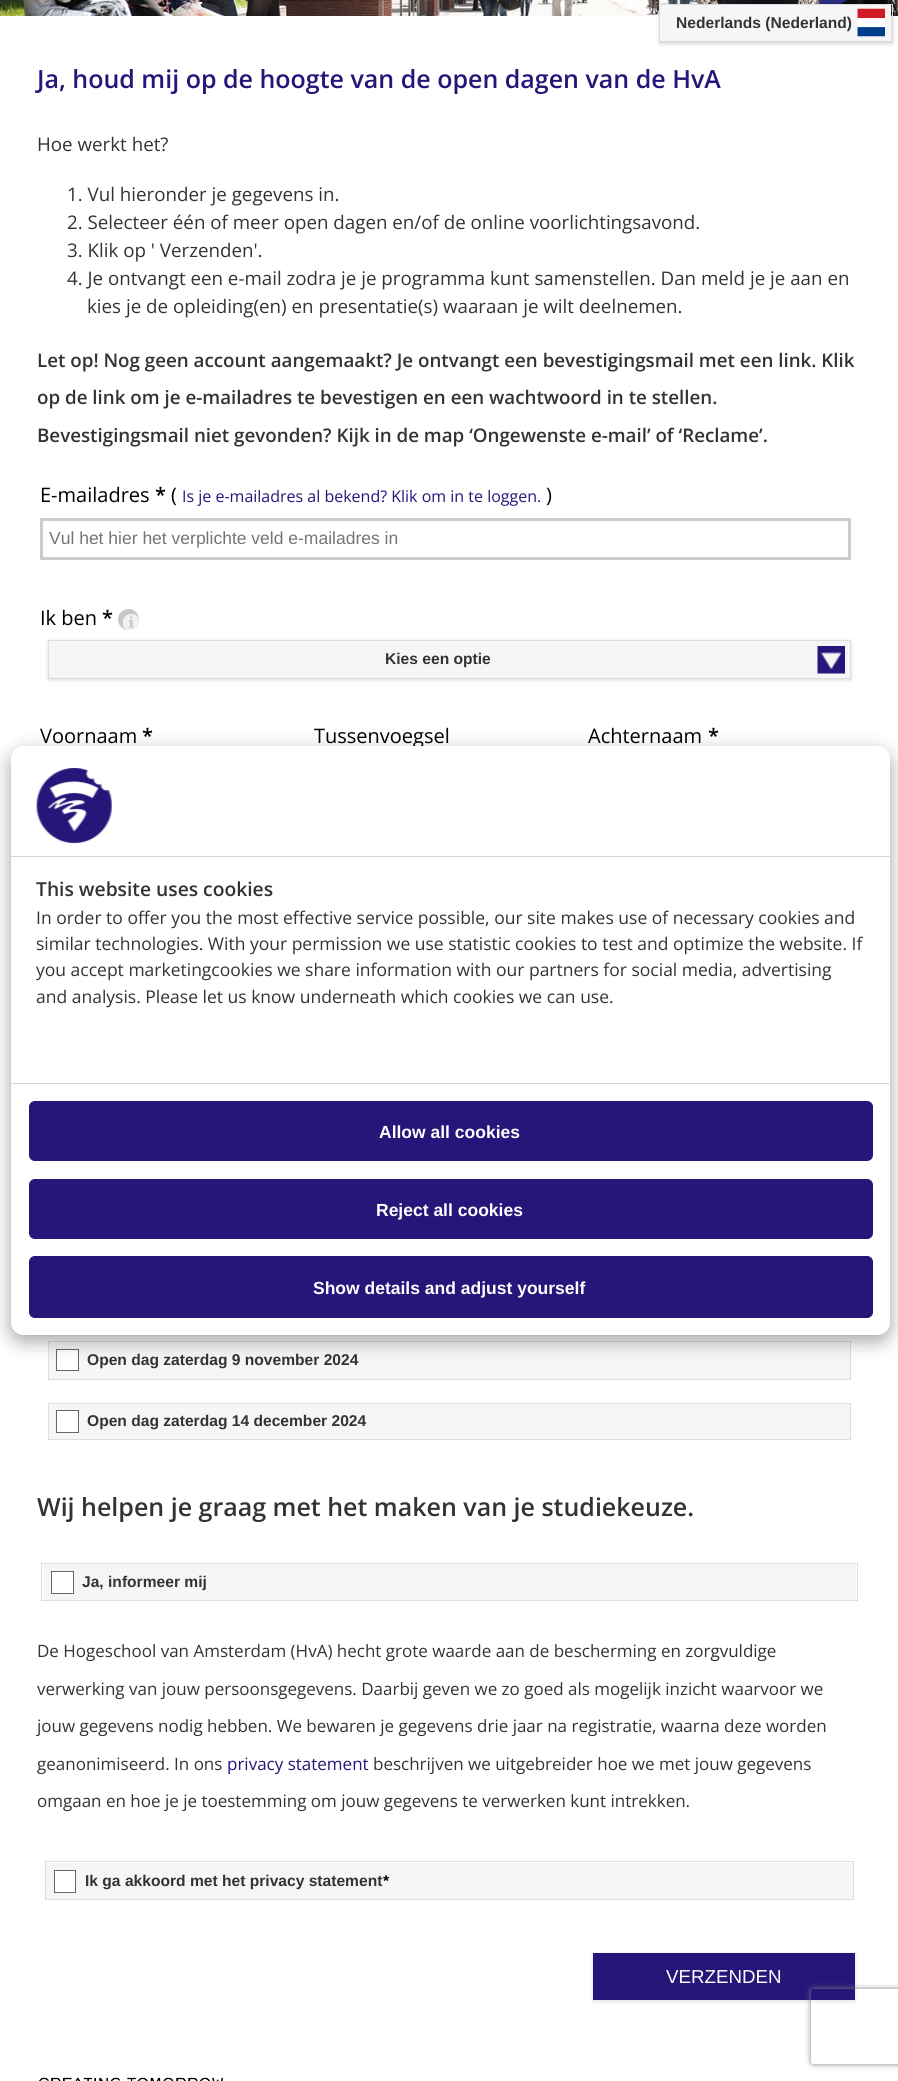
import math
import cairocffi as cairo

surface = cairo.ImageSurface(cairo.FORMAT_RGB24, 898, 2081)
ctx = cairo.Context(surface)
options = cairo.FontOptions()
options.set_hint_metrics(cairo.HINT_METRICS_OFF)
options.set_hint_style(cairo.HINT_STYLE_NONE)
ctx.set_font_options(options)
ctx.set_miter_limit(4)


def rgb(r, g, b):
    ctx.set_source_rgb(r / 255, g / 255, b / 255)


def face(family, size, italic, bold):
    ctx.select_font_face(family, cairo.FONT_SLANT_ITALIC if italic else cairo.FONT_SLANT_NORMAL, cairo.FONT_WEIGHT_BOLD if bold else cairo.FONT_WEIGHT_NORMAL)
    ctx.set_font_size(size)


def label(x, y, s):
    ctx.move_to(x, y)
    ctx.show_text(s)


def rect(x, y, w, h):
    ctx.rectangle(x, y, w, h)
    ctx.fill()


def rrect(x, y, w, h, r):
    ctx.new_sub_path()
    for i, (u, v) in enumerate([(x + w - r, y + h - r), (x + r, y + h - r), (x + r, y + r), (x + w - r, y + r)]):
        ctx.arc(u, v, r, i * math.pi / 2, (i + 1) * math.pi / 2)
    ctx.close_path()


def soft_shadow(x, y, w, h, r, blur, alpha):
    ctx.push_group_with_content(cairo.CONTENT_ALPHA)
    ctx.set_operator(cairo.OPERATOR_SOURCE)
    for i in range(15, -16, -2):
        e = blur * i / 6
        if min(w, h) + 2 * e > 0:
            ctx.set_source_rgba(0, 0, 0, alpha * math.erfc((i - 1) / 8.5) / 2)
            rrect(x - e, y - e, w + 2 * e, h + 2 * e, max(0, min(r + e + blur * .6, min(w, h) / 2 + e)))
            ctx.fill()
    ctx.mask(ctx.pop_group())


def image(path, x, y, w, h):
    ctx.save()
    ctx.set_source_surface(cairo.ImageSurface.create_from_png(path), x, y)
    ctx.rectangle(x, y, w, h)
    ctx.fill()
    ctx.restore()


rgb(255, 255, 255)
ctx.paint()
image('image1.png', 0, 0, 898, 16)
rgb(0, 0, 0)
soft_shadow(659, 5, 234, 39, 0, 2, 0.15)
rgb(246, 246, 246)
rect(660, 5, 231, 36)
ctx.rectangle(659.5, 4.5, 233, 38)
rgb(221, 221, 221)
ctx.set_line_width(1)
ctx.stroke()
face('Liberation Sans', 15.6, 0, 1)
rgb(51, 51, 51)
label(676, 28, 'Nederlands (Nederland)')
image('image0.png', 857, 8, 28, 29)
face('Open Sans SemiBold', 25, 0, 0)
rgb(37, 22, 122)
label(37, 88, 'Ja, houd mij op de hoogte van de open dagen van de HvA')
face('Open Sans', 18.75, 0, 0)
rgb(51, 51, 51)
label(37, 151, 'Hoe werkt het?')
label(67, 201, '1. Vul hieronder je gegevens in.')
label(67, 229, '2. Selecteer één of meer open dagen en/of de online voorlichtingsavond.')
label(67, 257, '3. Klik op \' Verzenden\'.')
label(67, 285, '4. Je ontvangt een e-mail zodra je je programma kunt samenstellen. Dan meld je je aan en')
label(87, 313, 'kies je de opleiding(en) en presentatie(s) waaraan je wilt deelnemen.')
face('Open Sans SemiBold', 18.75, 0, 0)
label(37, 367, 'Let op! Nog geen account aangemaakt? Je ontvangt een bevestigingsmail met een link. Klik')
label(37, 404, 'op de link om je e-mailadres te bevestigen en een wachtwoord in te stellen.')
label(37, 442, 'Bevestigingsmail niet gevonden? Kijk in de map ‘Ongewenste e-mail’ of ‘Reclame’.')
face('Open Sans', 20, 0, 0)
rgb(0, 0, 0)
label(40, 502, 'E-mailadres')
face('Open Sans SemiBold', 20, 0, 0)
label(155, 502, '*')
face('Open Sans', 20, 0, 0)
label(171, 502, '(')
face('Open Sans', 16, 0, 0)
rgb(37, 22, 122)
label(182, 502, 'Is je e-mailadres al bekend? Klik om in te loggen.')
face('Open Sans', 20, 0, 0)
rgb(0, 0, 0)
label(546, 502, ')')
ctx.rectangle(41.5, 519.5, 808, 39)
rgb(204, 204, 204)
ctx.set_line_width(3)
ctx.stroke()
face('Liberation Sans', 17.5, 0, 0)
rgb(117, 117, 117)
label(49, 544, 'Vul het hier het verplichte veld e-mailadres in')
rgb(0, 0, 0)
soft_shadow(593, 1954, 262, 47, 0, 2, 0.15)
rgb(37, 22, 122)
rect(593, 1953, 262, 47)
ctx.save()
ctx.set_fill_rule(cairo.FILL_RULE_EVEN_ODD)
ctx.new_path()
ctx.move_to(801, 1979)
ctx.line_to(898, 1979)
ctx.line_to(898, 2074)
ctx.line_to(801, 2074)
ctx.close_path()
ctx.move_to(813.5, 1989)
ctx.line_to(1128.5, 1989)
ctx.curve_to(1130, 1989, 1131, 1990, 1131, 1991.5)
ctx.line_to(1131, 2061.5)
ctx.curve_to(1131, 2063, 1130, 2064, 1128.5, 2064)
ctx.line_to(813.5, 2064)
ctx.curve_to(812, 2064, 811, 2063, 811, 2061.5)
ctx.line_to(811, 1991.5)
ctx.curve_to(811, 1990, 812, 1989, 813.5, 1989)
ctx.close_path()
ctx.clip()
rgb(128, 128, 128)
soft_shadow(811, 1989, 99, 75, 2.5, 3, 1)
ctx.restore()
face('Open Sans', 20, 0, 0)
rgb(0, 0, 0)
label(40, 625, 'Ik ben')
face('Open Sans SemiBold', 20, 0, 0)
label(102, 625, '*')
rgb(198, 198, 198)
ctx.new_path()
ctx.arc(128.5, 619.5, 10.5, 0, 2 * math.pi)
ctx.fill()
image('image2.png', 123, 614, 16, 16)
rgb(0, 0, 0)
soft_shadow(48, 641, 803, 39, 0, 2, 0.15)
rgb(246, 246, 246)
ctx.rectangle(48.5, 640.5, 802, 38)
ctx.fill_preserve()
rgb(221, 221, 221)
ctx.set_line_width(1)
ctx.stroke()
face('Liberation Sans', 15.6, 0, 1)
rgb(51, 51, 51)
label(385, 664, 'Kies een optie')
image('image3.png', 817, 646, 28, 28)
face('Open Sans', 20, 0, 0)
rgb(0, 0, 0)
label(40, 743, 'Voornaam')
face('Open Sans SemiBold', 20, 0, 0)
label(142, 743, '*')
face('Open Sans', 20, 0, 0)
label(314, 743, 'Tussenvoegsel')
label(588, 743, 'Achternaam')
face('Open Sans SemiBold', 20, 0, 0)
label(708, 743, '*')
rgb(246, 246, 246)
rect(49, 1343, 801, 36)
ctx.rectangle(48.5, 1341.5, 802, 38)
rgb(221, 221, 221)
ctx.stroke()
rgb(255, 255, 255)
ctx.rectangle(56.5, 1349.5, 22, 21)
ctx.fill_preserve()
rgb(102, 102, 102)
ctx.stroke()
face('Liberation Sans', 15.6, 0, 1)
rgb(51, 51, 51)
label(87, 1365, 'Open dag zaterdag 9 november 2024')
rgb(246, 246, 246)
ctx.rectangle(48.5, 1403.5, 802, 36)
ctx.fill_preserve()
rgb(221, 221, 221)
ctx.stroke()
rgb(255, 255, 255)
ctx.rectangle(56.5, 1410.5, 22, 22)
ctx.fill_preserve()
rgb(102, 102, 102)
ctx.stroke()
rgb(51, 51, 51)
label(87, 1426, 'Open dag zaterdag 14 december 2024')
face('Open Sans SemiBold', 25, 0, 0)
label(37, 1516, 'Wij helpen je graag met het maken van je studiekeuze.')
rgb(246, 246, 246)
rect(43, 1564, 813, 36)
ctx.rectangle(41.5, 1563.5, 816, 37)
rgb(221, 221, 221)
ctx.stroke()
rgb(255, 255, 255)
ctx.rectangle(51.5, 1571.5, 22, 22)
ctx.fill_preserve()
rgb(102, 102, 102)
ctx.stroke()
face('Liberation Sans', 15.6, 0, 1)
rgb(51, 51, 51)
label(82, 1587, 'Ja, informeer mij')
face('Open Sans', 17, 0, 0)
label(37, 1657, 'De Hogeschool van Amsterdam (HvA) hecht grote waarde aan de bescherming en zorgvuldige')
label(37, 1695, 'verwerking van jouw persoonsgegevens. Daarbij geven we zo goed als mogelijk inzicht waarvoor we')
label(37, 1732, 'jouw gegevens nodig hebben. We bewaren je gegevens drie jaar na registratie, waarna deze worden')
label(37, 1770, 'geanonimiseerd. In ons')
rgb(37, 22, 122)
label(227, 1770, 'privacy statement')
rgb(51, 51, 51)
label(373, 1770, 'beschrijven we uitgebreider hoe we met jouw gegevens')
label(37, 1807, 'omgaan en hoe je je toestemming om jouw gegevens te verwerken kunt intrekken.')
rgb(246, 246, 246)
rect(46, 1863, 807, 36)
ctx.rectangle(45.5, 1861.5, 808, 38)
rgb(221, 221, 221)
ctx.stroke()
rgb(255, 255, 255)
ctx.rectangle(54.5, 1870.5, 21, 22)
ctx.fill_preserve()
rgb(102, 102, 102)
ctx.stroke()
face('Liberation Sans', 15.6, 0, 1)
rgb(51, 51, 51)
label(85, 1886, 'Ik ga akkoord met het privacy statement')
rgb(0, 0, 0)
label(383, 1886, '*')
face('Liberation Sans', 18.75, 0, 0)
rgb(255, 255, 255)
label(666, 1983, 'VERZENDEN')
image('image4.png', 39, 2077, 185, 4)
rgb(0, 0, 0)
soft_shadow(11, 753, 879, 588, 13, 9.5, 0.19)
soft_shadow(11, 753, 879, 588, 13, 9.5, 0.2)
rgb(255, 255, 255)
rrect(11, 746, 879, 589, 13)
ctx.fill()
ctx.new_path()
ctx.move_to(24, 746)
ctx.line_to(877, 746)
ctx.curve_to(884, 746, 890, 752, 890, 759)
ctx.line_to(890, 858)
ctx.line_to(11, 858)
ctx.line_to(11, 759)
ctx.curve_to(11, 752, 17, 746, 24, 746)
ctx.close_path()
ctx.fill()
rgb(214, 214, 214)
rect(11, 856, 879, 1)
image('image5.png', 36, 768, 76, 76)
face('Open Sans SemiBold', 19.25, 0, 0)
rgb(51, 51, 51)
label(36, 896, 'This website uses cookies')
face('Open Sans', 17.5, 0, 0)
label(36, 924, 'In order to offer you the most effective service possible, our site makes use of necessary cookies and')
label(36, 950, 'similar technologies. With your permission we use statistic cookies to test and optimize the website. If')
label(36, 976, 'you accept marketingcookies we share information with our partners for social media, advertising')
label(36, 1003, 'and analysis. Please let us know underneath which cookies we can use.')
rgb(255, 255, 255)
ctx.new_path()
ctx.move_to(11, 1083)
ctx.line_to(890, 1083)
ctx.line_to(890, 1322)
ctx.curve_to(890, 1329, 884, 1335, 877, 1335)
ctx.line_to(24, 1335)
ctx.curve_to(17, 1335, 11, 1329, 11, 1322)
ctx.close_path()
ctx.fill()
rgb(214, 214, 214)
rect(11, 1083, 879, 1)
rgb(37, 22, 122)
rrect(29.5, 1101.5, 843, 59, 5.5)
ctx.fill_preserve()
ctx.stroke()
face('Liberation Sans', 17.5, 0, 1)
rgb(255, 255, 255)
label(379, 1138, 'Allow all cookies')
rgb(37, 22, 122)
rrect(29.5, 1179.5, 843, 59, 5.5)
ctx.fill_preserve()
ctx.stroke()
rgb(255, 255, 255)
label(376, 1216, 'Reject all cookies')
rgb(37, 22, 122)
rrect(29.5, 1256.5, 843, 61, 5.5)
ctx.fill_preserve()
ctx.stroke()
rgb(255, 255, 255)
label(313, 1294, 'Show details and adjust yourself')
surface.write_to_png('render.png')
